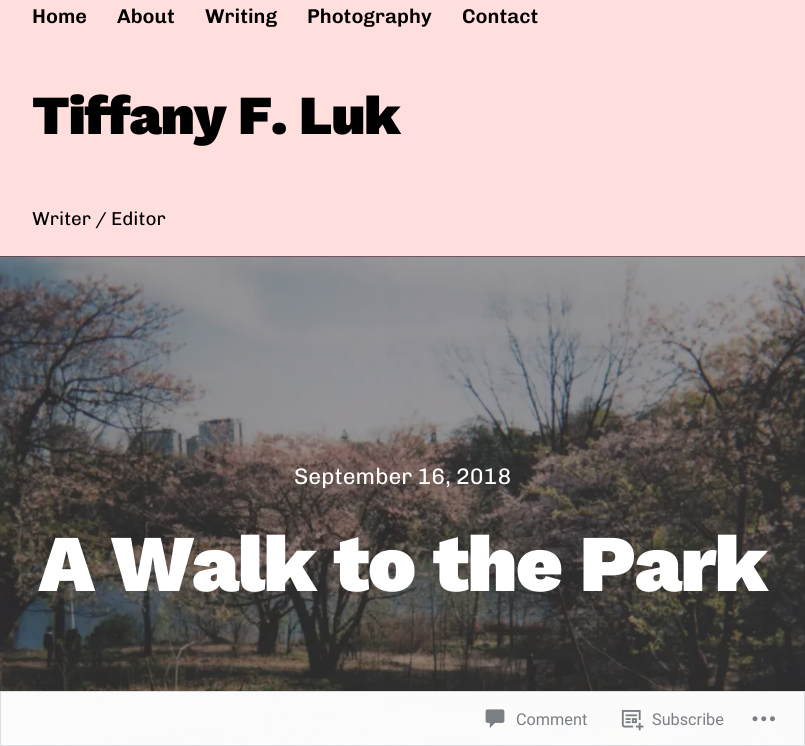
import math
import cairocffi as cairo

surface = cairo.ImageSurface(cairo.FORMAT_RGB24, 805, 746)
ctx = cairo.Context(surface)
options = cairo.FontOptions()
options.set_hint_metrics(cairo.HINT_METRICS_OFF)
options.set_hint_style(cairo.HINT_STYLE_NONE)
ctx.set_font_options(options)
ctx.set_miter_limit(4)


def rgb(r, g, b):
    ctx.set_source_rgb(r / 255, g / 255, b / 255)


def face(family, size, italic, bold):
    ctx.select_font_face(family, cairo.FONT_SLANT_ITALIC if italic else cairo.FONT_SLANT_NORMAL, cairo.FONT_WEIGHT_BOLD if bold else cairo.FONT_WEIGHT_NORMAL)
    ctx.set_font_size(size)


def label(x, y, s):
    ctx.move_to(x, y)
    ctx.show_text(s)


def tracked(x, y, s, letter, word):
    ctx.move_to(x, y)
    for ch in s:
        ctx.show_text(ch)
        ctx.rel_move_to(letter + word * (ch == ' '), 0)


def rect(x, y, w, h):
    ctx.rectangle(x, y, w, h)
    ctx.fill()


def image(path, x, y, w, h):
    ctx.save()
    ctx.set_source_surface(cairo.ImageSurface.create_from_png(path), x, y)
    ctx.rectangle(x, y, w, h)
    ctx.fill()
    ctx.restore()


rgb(255, 222, 222)
ctx.paint()
face('Chivo SemiBold', 20, 0, 0)
rgb(0, 0, 0)
label(32, 23, 'Home')
label(117, 23, 'About')
label(205, 23, 'Writing')
label(307, 23, 'Photography')
label(462, 23, 'Contact')
face('Work Sans Black', 55, 0, 0)
tracked(32, 134, 'Tiffany F. Luk', -1.1, 0)
face('Chivo', 18.75, 0, 0)
label(32, 225, 'Writer / Editor')
rgb(71, 10, 24)
rect(0, 256, 805, 1)
image('image0.png', 0, 256, 805, 489)
face('Chivo', 22.5, 0, 0)
rgb(255, 255, 255)
label(294, 484, 'September 16, 2018')
face('Work Sans Black', 80.5, 0, 0)
tracked(39, 591, 'A Walk to the Park', -1.6, 0)
ctx.set_source_rgba(1, 1, 1, 0.98)
ctx.rectangle(0.5, 691.5, 804, 54)
ctx.fill_preserve()
rgb(221, 221, 223)
ctx.set_line_width(1)
ctx.stroke()
image('image1.png', 485, 709, 20, 19)
face('Roboto', 16.25, 0, 0)
rgb(123, 127, 132)
label(516, 725, 'Comment')
image('image2.png', 621, 710, 23, 21)
label(652, 725, 'Subscribe')
image('image3.png', 752, 716, 23, 6)
surface.write_to_png('render.png')
